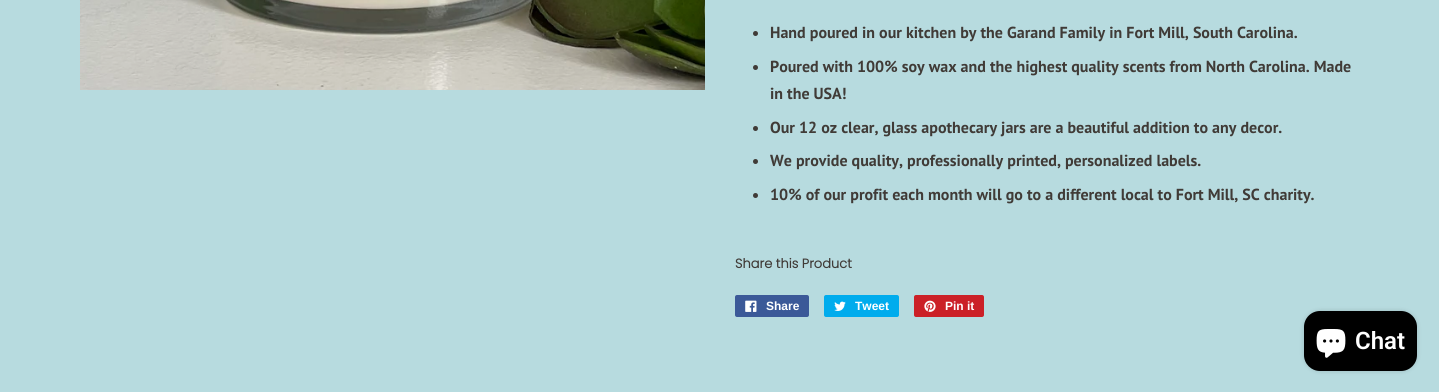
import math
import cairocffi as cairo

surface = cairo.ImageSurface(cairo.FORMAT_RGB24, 1439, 392)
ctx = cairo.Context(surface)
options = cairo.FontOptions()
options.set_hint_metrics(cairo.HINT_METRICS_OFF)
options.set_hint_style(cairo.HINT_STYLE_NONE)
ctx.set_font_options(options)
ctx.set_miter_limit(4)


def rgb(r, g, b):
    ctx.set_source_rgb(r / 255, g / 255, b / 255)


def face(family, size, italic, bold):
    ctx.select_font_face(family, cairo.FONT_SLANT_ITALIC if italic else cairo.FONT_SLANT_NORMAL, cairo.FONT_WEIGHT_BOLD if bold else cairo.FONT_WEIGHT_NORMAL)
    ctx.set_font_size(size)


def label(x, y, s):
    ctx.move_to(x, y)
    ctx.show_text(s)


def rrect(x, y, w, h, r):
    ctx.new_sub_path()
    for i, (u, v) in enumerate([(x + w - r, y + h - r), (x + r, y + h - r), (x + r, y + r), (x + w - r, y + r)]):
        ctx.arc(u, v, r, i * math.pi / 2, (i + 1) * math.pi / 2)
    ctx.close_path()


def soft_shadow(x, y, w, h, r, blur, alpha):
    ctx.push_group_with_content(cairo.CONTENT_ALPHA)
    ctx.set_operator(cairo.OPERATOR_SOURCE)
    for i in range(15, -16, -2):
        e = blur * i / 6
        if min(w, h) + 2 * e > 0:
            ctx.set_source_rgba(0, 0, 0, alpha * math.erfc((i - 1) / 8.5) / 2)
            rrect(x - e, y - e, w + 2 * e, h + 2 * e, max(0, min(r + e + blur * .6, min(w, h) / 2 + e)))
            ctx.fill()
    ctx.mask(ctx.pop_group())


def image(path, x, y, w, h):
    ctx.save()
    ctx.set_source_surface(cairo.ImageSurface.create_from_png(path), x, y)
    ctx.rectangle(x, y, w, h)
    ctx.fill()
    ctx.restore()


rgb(183, 219, 223)
ctx.paint()
image('image0.png', 80, 0, 625, 90)
rgb(64, 59, 55)
ctx.arc(755.5, 33.5, 2.5, 0, 2 * math.pi)
ctx.fill()
face('PT Sans', 16, 0, 1)
label(770, 38, 'Hand poured in our kitchen by the Garand Family in Fort Mill, South Carolina.')
ctx.new_path()
ctx.arc(755.5, 67.5, 2.5, 0, 2 * math.pi)
ctx.fill()
label(770, 72, 'Poured with 100% soy wax and the highest quality scents from North Carolina. Made')
label(770, 99, 'in the USA!')
ctx.new_path()
ctx.arc(755.5, 128.5, 2.5, 0, 2 * math.pi)
ctx.fill()
label(770, 133, 'Our 12 oz clear, glass apothecary jars are a beautiful addition to any decor.')
ctx.new_path()
ctx.arc(755.5, 161.5, 2.5, 0, 2 * math.pi)
ctx.fill()
label(770, 166, 'We provide quality, professionally printed, personalized labels.')
ctx.new_path()
ctx.arc(755.5, 195.5, 2.5, 0, 2 * math.pi)
ctx.fill()
label(770, 200, '10% of our profit each month will go to a different local to Fort Mill, SC charity.')
face('Poppins', 13, 0, 1)
label(735, 268, 'Share this Product')
rgb(59, 89, 152)
rrect(735, 295, 74, 22, 2)
ctx.fill()
image('image1.png', 745, 300, 12, 12)
face('Liberation Sans', 12, 0, 1)
rgb(255, 255, 255)
label(766, 310, 'Share')
rgb(0, 172, 237)
rrect(824, 295, 75, 22, 2)
ctx.fill()
image('image2.png', 834, 301, 12, 10)
rgb(255, 255, 255)
label(855, 310, 'Tweet')
rgb(203, 32, 39)
rrect(914, 295, 70, 22, 2)
ctx.fill()
image('image3.png', 924, 300, 12, 12)
rgb(255, 255, 255)
label(945, 310, 'Pin it')
rgb(0, 0, 0)
soft_shadow(1304, 311, 113, 60, 16, 2.5, 0.15)
rgb(0, 0, 0)
rrect(1304, 311, 113, 60, 16)
ctx.fill()
image('image4.png', 1316, 329, 30, 29)
face('Roboto SemiBold', 24, 0, 0)
rgb(255, 255, 255)
label(1355, 349, 'Chat')
surface.write_to_png('render.png')
